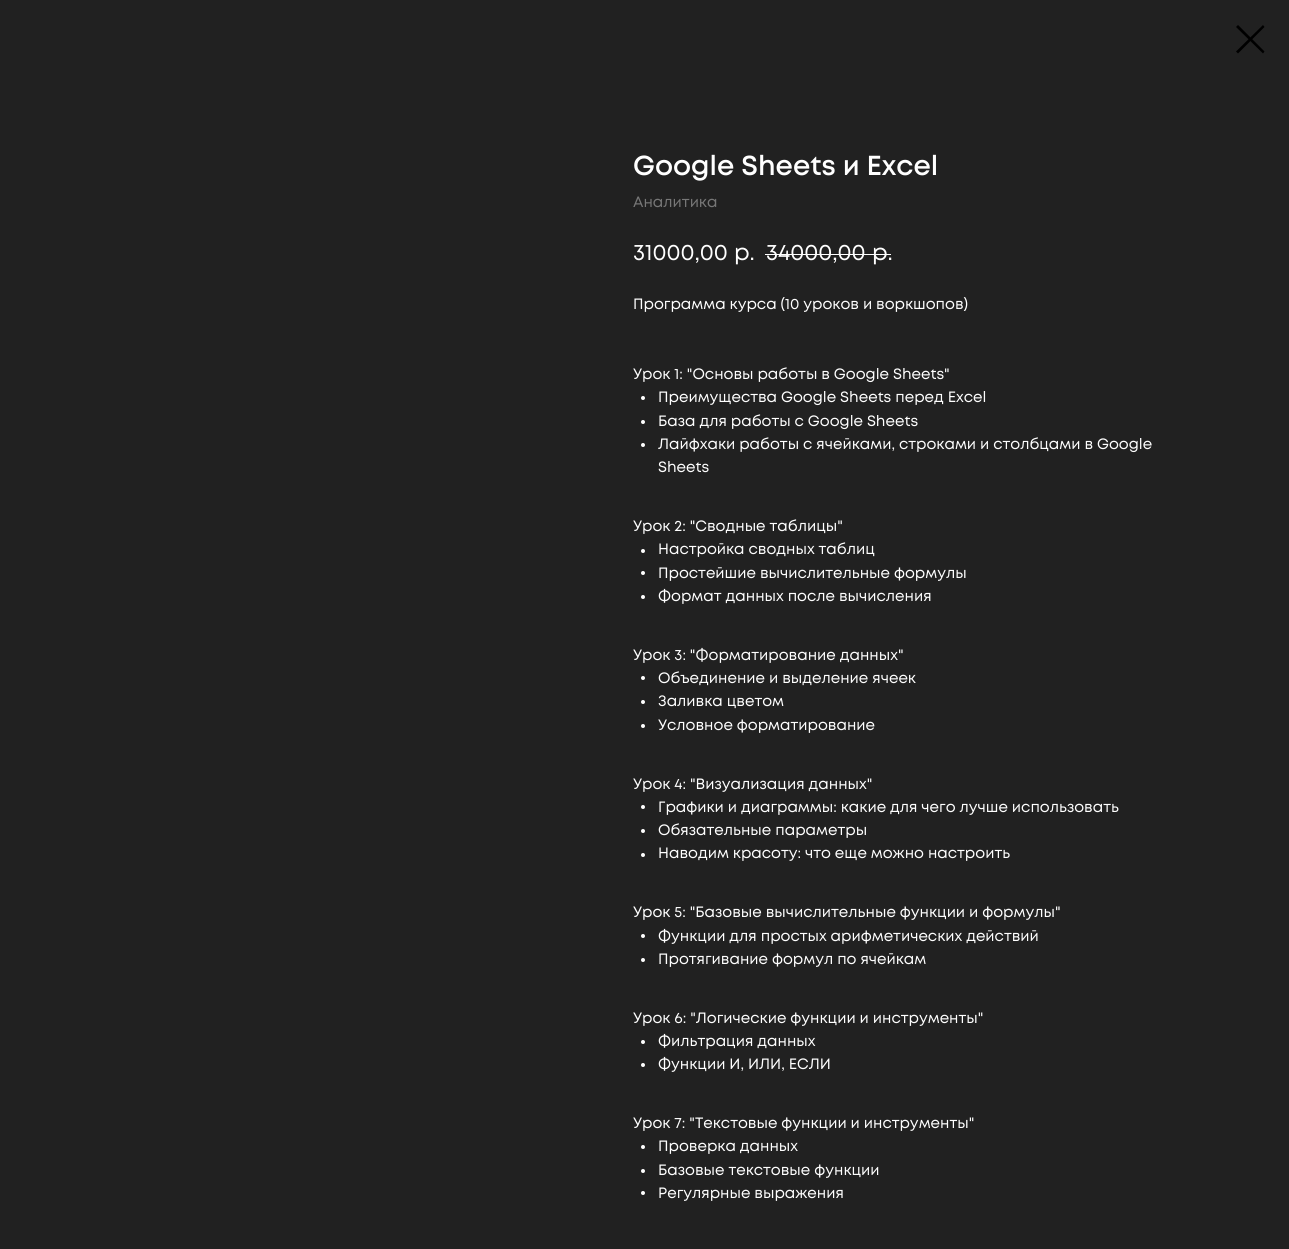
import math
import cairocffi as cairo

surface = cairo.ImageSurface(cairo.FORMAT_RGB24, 1289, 1249)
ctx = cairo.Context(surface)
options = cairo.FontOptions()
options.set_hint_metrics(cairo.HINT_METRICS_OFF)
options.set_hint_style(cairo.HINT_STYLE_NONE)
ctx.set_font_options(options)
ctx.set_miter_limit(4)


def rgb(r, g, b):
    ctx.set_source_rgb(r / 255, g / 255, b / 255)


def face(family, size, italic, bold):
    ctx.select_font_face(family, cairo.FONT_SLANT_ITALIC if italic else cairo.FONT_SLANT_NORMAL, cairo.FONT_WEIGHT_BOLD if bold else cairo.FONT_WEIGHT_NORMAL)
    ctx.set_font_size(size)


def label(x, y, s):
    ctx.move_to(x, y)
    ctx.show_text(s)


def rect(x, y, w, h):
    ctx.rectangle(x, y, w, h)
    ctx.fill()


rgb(33, 33, 33)
ctx.paint()
rgb(0, 0, 0)
ctx.set_fill_rule(cairo.FILL_RULE_EVEN_ODD)
ctx.new_path()
ctx.move_to(1236, 27)
ctx.line_to(1238, 25)
ctx.line_to(1264.5, 51.5)
ctx.line_to(1263, 53.5)
ctx.close_path()
ctx.fill()
ctx.new_path()
ctx.move_to(1263, 25)
ctx.line_to(1264.5, 27)
ctx.line_to(1238, 53.5)
ctx.line_to(1236, 51.5)
ctx.close_path()
ctx.fill()
face('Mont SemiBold', 27.5, 0, 0)
rgb(255, 255, 255)
label(633, 175, 'Google Sheets и Excel')
face('Mont', 15, 0, 0)
rgb(119, 119, 119)
label(633, 207, 'Аналитика')
face('Mont', 22.5, 0, 0)
rgb(255, 255, 255)
label(633, 260, '31000,00')
label(734, 260, 'р.')
label(766, 260, '34000,00')
label(872, 260, 'р.')
rect(765, 254, 126, 1)
face('Mont', 15, 0, 0)
label(633, 309, 'Программа курса (10 уроков и воркшопов)')
label(633, 379, 'Урок 1: "Основы работы в Google Sheets"')
ctx.new_path()
ctx.arc(643, 398, 2, 0, 2 * math.pi)
ctx.fill()
label(658, 402, 'Преимущества Google Sheets перед Excel')
ctx.new_path()
ctx.arc(643, 422, 2, 0, 2 * math.pi)
ctx.fill()
label(658, 426, 'База для работы с Google Sheets')
ctx.new_path()
ctx.arc(643, 445, 2, 0, 2 * math.pi)
ctx.fill()
label(658, 449, 'Лайфхаки работы с ячейками, строками и столбцами в Google')
label(658, 472, 'Sheets')
label(633, 531, 'Урок 2: "Сводные таблицы"')
ctx.new_path()
ctx.arc(643, 551, 2, 0, 2 * math.pi)
ctx.fill()
label(658, 554, 'Настройка сводных таблиц')
ctx.new_path()
ctx.arc(643, 573, 2, 0, 2 * math.pi)
ctx.fill()
label(658, 578, 'Простейшие вычислительные формулы')
ctx.new_path()
ctx.arc(643, 597, 2, 0, 2 * math.pi)
ctx.fill()
label(658, 601, 'Формат данных после вычисления')
label(633, 660, 'Урок 3: "Форматирование данных"')
ctx.new_path()
ctx.arc(643, 678, 2, 0, 2 * math.pi)
ctx.fill()
label(658, 683, 'Объединение и выделение ячеек')
ctx.new_path()
ctx.arc(643, 702, 2, 0, 2 * math.pi)
ctx.fill()
label(658, 706, 'Заливка цветом')
ctx.new_path()
ctx.arc(643, 726, 2, 0, 2 * math.pi)
ctx.fill()
label(658, 730, 'Условное форматирование')
label(633, 789, 'Урок 4: "Визуализация данных"')
ctx.new_path()
ctx.arc(643, 807, 2, 0, 2 * math.pi)
ctx.fill()
label(658, 812, 'Графики и диаграммы: какие для чего лучше использовать')
ctx.new_path()
ctx.arc(643, 831, 2, 0, 2 * math.pi)
ctx.fill()
label(658, 835, 'Обязательные параметры')
ctx.new_path()
ctx.arc(643, 855, 2, 0, 2 * math.pi)
ctx.fill()
label(658, 858, 'Наводим красоту: что еще можно настроить')
label(633, 917, 'Урок 5: "Базовые вычислительные функции и формулы"')
ctx.new_path()
ctx.arc(643, 936, 2, 0, 2 * math.pi)
ctx.fill()
label(658, 941, 'Функции для простых арифметических действий')
ctx.new_path()
ctx.arc(643, 960, 2, 0, 2 * math.pi)
ctx.fill()
label(658, 964, 'Протягивание формул по ячейкам')
label(633, 1023, 'Урок 6: "Логические функции и инструменты"')
ctx.new_path()
ctx.arc(643, 1042, 2, 0, 2 * math.pi)
ctx.fill()
label(658, 1046, 'Фильтрация данных')
ctx.new_path()
ctx.arc(643, 1065, 2, 0, 2 * math.pi)
ctx.fill()
label(658, 1069, 'Функции И, ИЛИ, ЕСЛИ')
label(633, 1128, 'Урок 7: "Текстовые функции и инструменты"')
ctx.new_path()
ctx.arc(643, 1147, 2, 0, 2 * math.pi)
ctx.fill()
label(658, 1151, 'Проверка данных')
ctx.new_path()
ctx.arc(643, 1171, 2, 0, 2 * math.pi)
ctx.fill()
label(658, 1175, 'Базовые текстовые функции')
ctx.new_path()
ctx.arc(643, 1193, 2, 0, 2 * math.pi)
ctx.fill()
label(658, 1198, 'Регулярные выражения')
surface.write_to_png('render.png')
